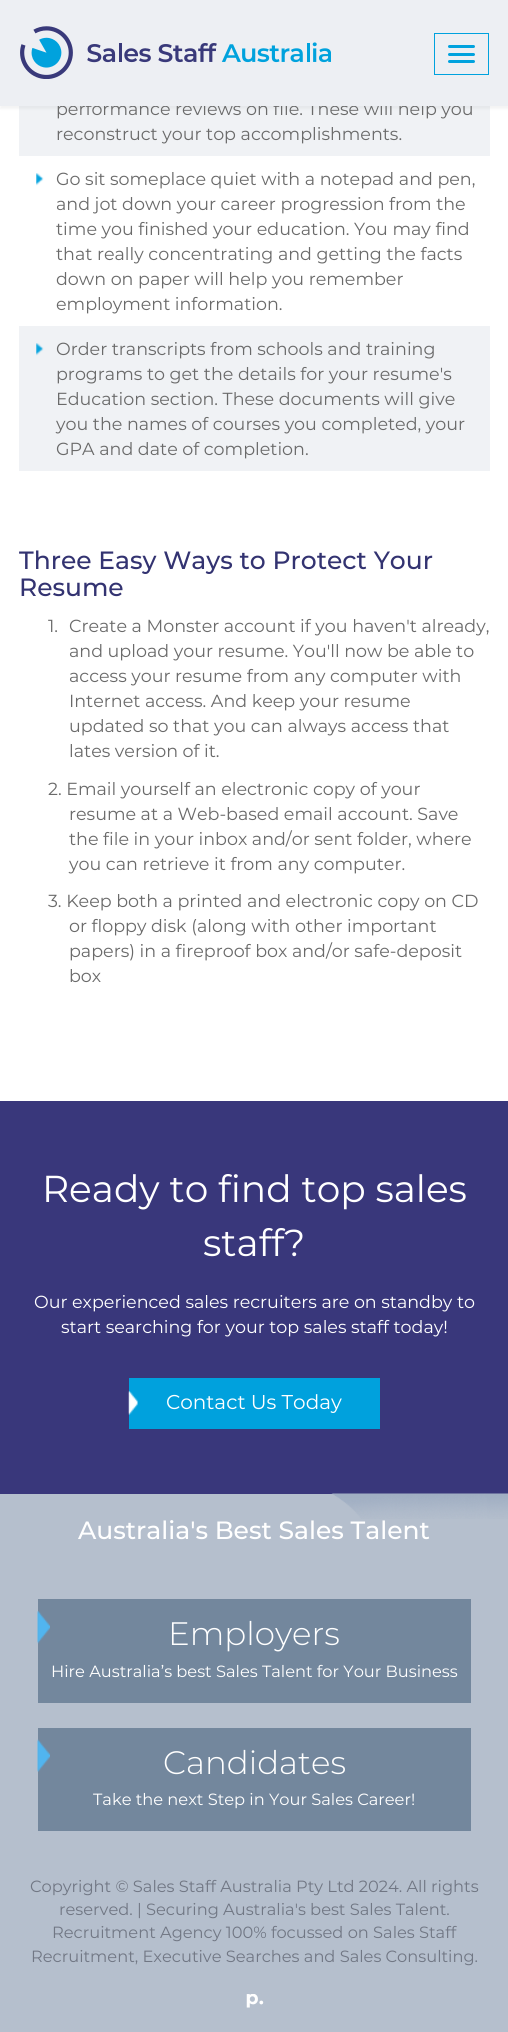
import math
import cairocffi as cairo

surface = cairo.ImageSurface(cairo.FORMAT_RGB24, 508, 2032)
ctx = cairo.Context(surface)
options = cairo.FontOptions()
options.set_hint_metrics(cairo.HINT_METRICS_OFF)
options.set_hint_style(cairo.HINT_STYLE_NONE)
ctx.set_font_options(options)
ctx.set_miter_limit(4)


def rgb(r, g, b):
    ctx.set_source_rgb(r / 255, g / 255, b / 255)


def face(family, size, italic, bold):
    ctx.select_font_face(family, cairo.FONT_SLANT_ITALIC if italic else cairo.FONT_SLANT_NORMAL, cairo.FONT_WEIGHT_BOLD if bold else cairo.FONT_WEIGHT_NORMAL)
    ctx.set_font_size(size)


def label(x, y, s):
    ctx.move_to(x, y)
    ctx.show_text(s)


def rect(x, y, w, h):
    ctx.rectangle(x, y, w, h)
    ctx.fill()


def rrect(x, y, w, h, r):
    ctx.new_sub_path()
    for i, (u, v) in enumerate([(x + w - r, y + h - r), (x + r, y + h - r), (x + r, y + r), (x + w - r, y + r)]):
        ctx.arc(u, v, r, i * math.pi / 2, (i + 1) * math.pi / 2)
    ctx.close_path()


def soft_shadow(x, y, w, h, r, blur, alpha):
    ctx.push_group_with_content(cairo.CONTENT_ALPHA)
    ctx.set_operator(cairo.OPERATOR_SOURCE)
    for i in range(15, -16, -2):
        e = blur * i / 6
        if min(w, h) + 2 * e > 0:
            ctx.set_source_rgba(0, 0, 0, alpha * math.erfc((i - 1) / 8.5) / 2)
            rrect(x - e, y - e, w + 2 * e, h + 2 * e, max(0, min(r + e + blur * .6, min(w, h) / 2 + e)))
            ctx.fill()
    ctx.mask(ctx.pop_group())


def image(path, x, y, w, h):
    ctx.save()
    ctx.set_source_surface(cairo.ImageSurface.create_from_png(path), x, y)
    ctx.rectangle(x, y, w, h)
    ctx.fill()
    ctx.restore()


rgb(255, 255, 255)
ctx.paint()
rgb(240, 242, 245)
rect(19, 106, 471, 50)
rgb(65, 65, 65)
soft_shadow(0, 3, 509, 106, 0, 1, 0.06)
face('Montserrat', 17.5, 0, 0)
rgb(106, 106, 106)
label(56, 115, 'performance reviews on file. These will help you')
rgb(237, 239, 243)
rect(0, 0, 508, 106)
image('image0.png', 20, 26, 311, 53)
ctx.rectangle(434.5, 33.5, 54, 41)
rgb(0, 162, 222)
ctx.set_line_width(1)
ctx.stroke()
rrect(448, 45, 27, 3, 1.5)
ctx.fill()
rrect(448, 53, 27, 3, 1.5)
ctx.fill()
rrect(448, 60, 27, 3, 1.5)
ctx.fill()
rgb(106, 106, 106)
label(56, 140, 'reconstruct your top accomplishments.')
image('image1.png', 36, 173, 8, 13)
label(56, 185, 'Go sit someplace quiet with a notepad and pen,')
label(56, 210, 'and jot down your career progression from the')
label(56, 235, 'time you finished your education. You may find')
label(56, 260, 'that really concentrating and getting the facts')
label(56, 285, 'down on paper will help you remember')
label(56, 310, 'employment information.')
rgb(240, 242, 245)
rect(19, 326, 471, 145)
image('image2.png', 36, 343, 8, 13)
rgb(106, 106, 106)
label(56, 355, 'Order transcripts from schools and training')
label(56, 380, 'programs to get the details for your resume\'s')
label(56, 405, 'Education section. These documents will give')
label(56, 430, 'you the names of courses you completed, your')
label(56, 455, 'GPA and date of completion.')
face('Montserrat Medium', 25, 0, 0)
rgb(51, 51, 113)
label(19, 569, 'Three Easy Ways to Protect Your')
label(19, 596, 'Resume')
face('Montserrat', 17.5, 0, 0)
rgb(106, 106, 106)
label(48, 632, '1.')
label(69, 632, 'Create a Monster account if you haven\'t already,')
label(69, 657, 'and upload your resume. You\'ll now be able to')
label(69, 682, 'access your resume from any computer with')
label(69, 707, 'Internet access. And keep your resume')
label(69, 732, 'updated so that you can always access that')
label(69, 757, 'lates version of it.')
label(48, 795, '2. Email yourself an electronic copy of your')
label(69, 820, 'resume at a Web-based email account. Save')
label(69, 845, 'the file in your inbox and/or sent folder, where')
label(69, 870, 'you can retrieve it from any computer.')
label(48, 907, '3. Keep both a printed and electronic copy on CD')
label(69, 932, 'or floppy disk (along with other important')
label(69, 957, 'papers) in a fireproof box and/or safe-deposit')
label(69, 982, 'box')
rgb(57, 55, 123)
rect(0, 1101, 508, 393)
face('Montserrat', 37.5, 0, 0)
rgb(255, 255, 255)
label(42, 1202, 'Ready to find top sales')
label(203, 1256, 'staff?')
face('Montserrat', 17.5, 0, 0)
label(34, 1308, 'Our experienced sales recruiters are on standby to')
label(61, 1333, 'start searching for your top sales staff today!')
rgb(0, 161, 221)
rect(129, 1378, 251, 51)
image('image3.png', 128, 1390, 10, 25)
face('Montserrat', 20, 0, 0)
rgb(255, 255, 255)
label(166, 1409, 'Contact Us Today')
rgb(181, 191, 205)
rect(0, 1494, 508, 538)
image('image4.png', 331, 1493, 177, 26)
face('Montserrat Medium', 25, 0, 0)
rgb(255, 255, 255)
label(78, 1539, 'Australia\'s Best Sales Talent')
rgb(115, 135, 157)
rect(38, 1599, 433, 104)
image('image5.png', 37, 1611, 13, 33)
face('Montserrat Light', 32.5, 0, 0)
rgb(255, 255, 255)
label(168, 1645, 'Employers')
face('Montserrat', 16.25, 0, 0)
label(51, 1677, 'Hire Australia’s best Sales Talent for Your Business')
rgb(115, 135, 157)
rect(38, 1728, 433, 103)
image('image6.png', 37, 1739, 13, 33)
face('Montserrat Light', 32.5, 0, 0)
rgb(255, 255, 255)
label(163, 1774, 'Candidates')
face('Montserrat', 16.25, 0, 0)
label(93, 1805, 'Take the next Step in Your Sales Career!')
rgb(113, 119, 132)
label(30, 1892, 'Copyright © Sales Staff Australia Pty Ltd 2024. All rights')
label(59, 1915, 'reserved. | Securing Australia\'s best Sales Talent.')
label(52, 1938, 'Recruitment Agency 100% focussed on Sales Staff')
label(31, 1962, 'Recruitment, Executive Searches and Sales Consulting.')
image('image7.png', 246, 1994, 18, 14)
surface.write_to_png('render.png')
